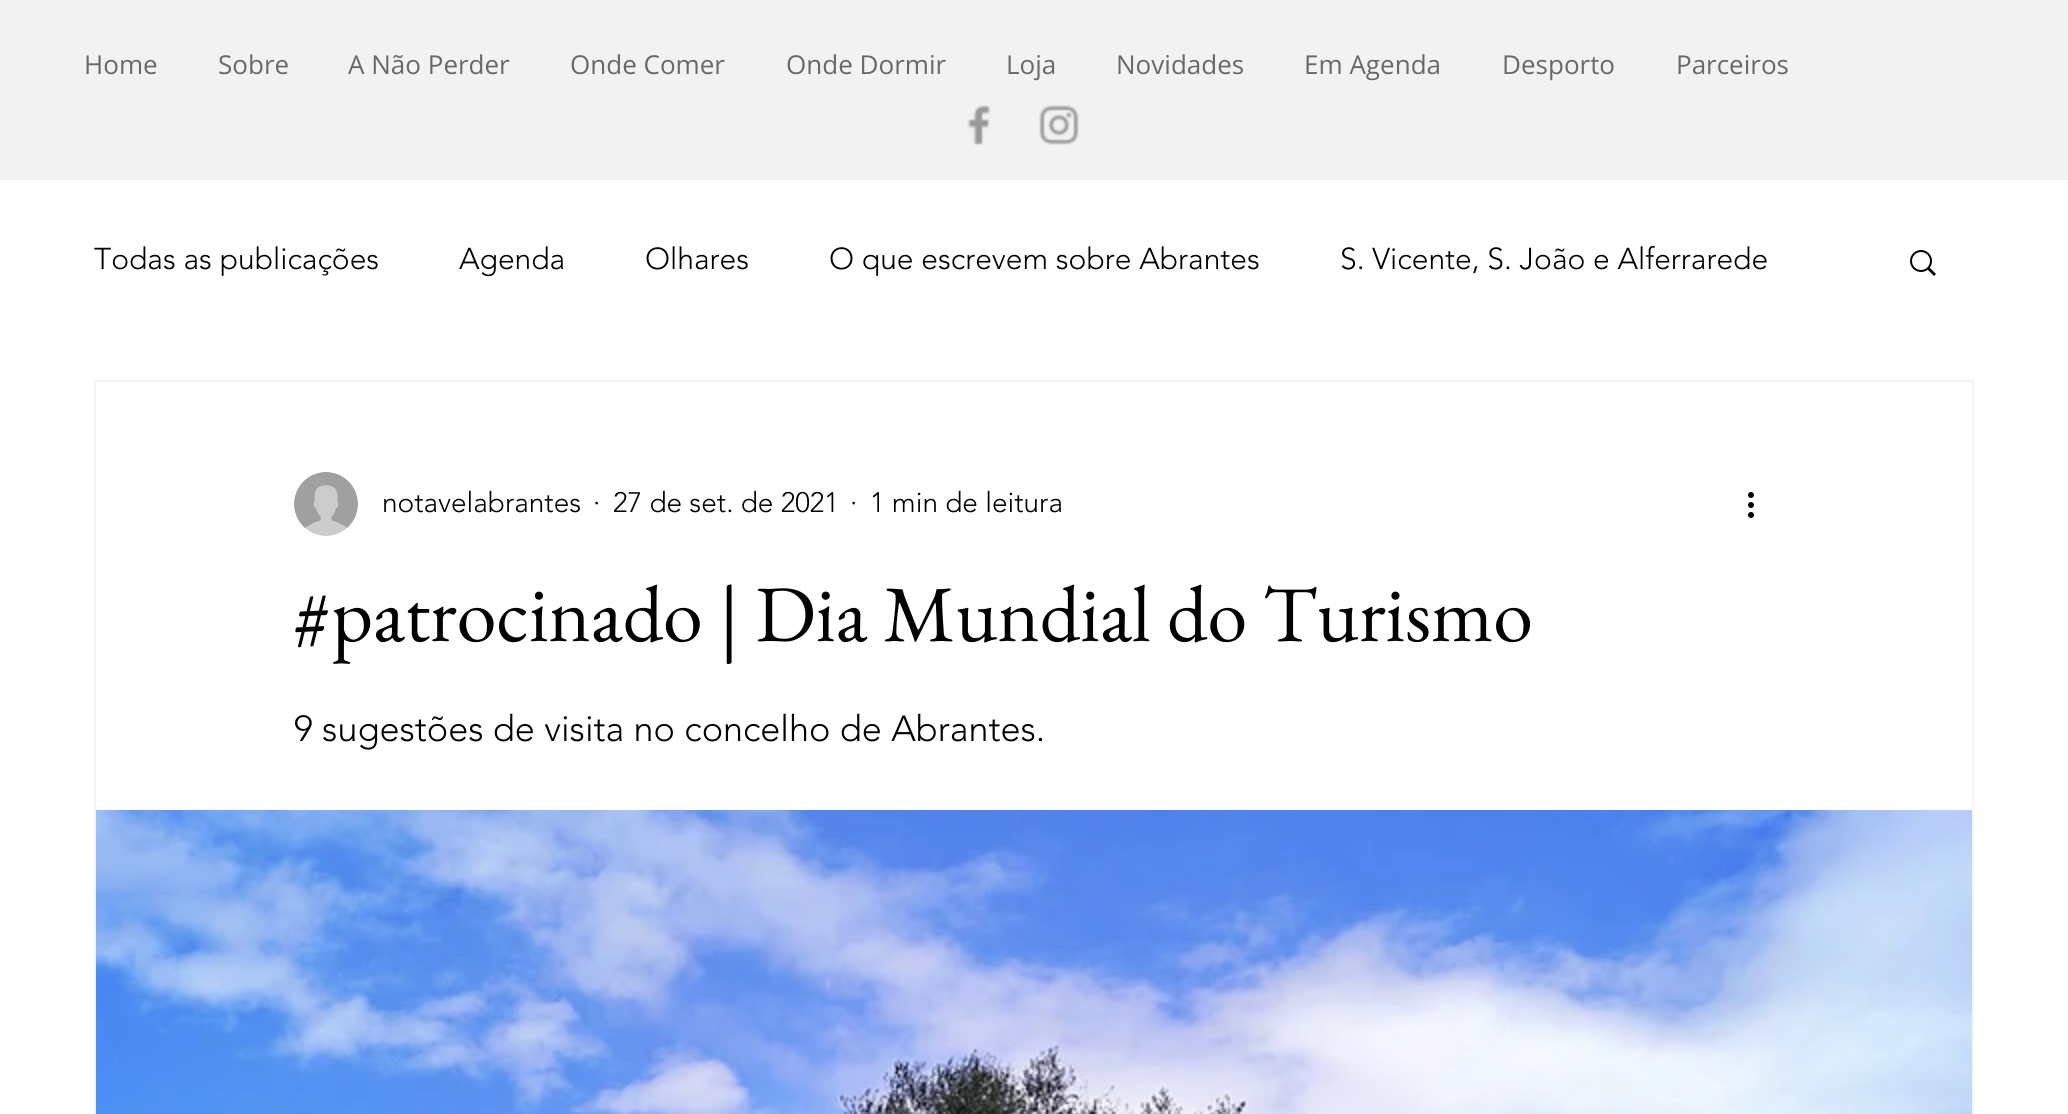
import math
import cairocffi as cairo

surface = cairo.ImageSurface(cairo.FORMAT_RGB24, 2068, 1114)
ctx = cairo.Context(surface)
options = cairo.FontOptions()
options.set_hint_metrics(cairo.HINT_METRICS_OFF)
options.set_hint_style(cairo.HINT_STYLE_NONE)
ctx.set_font_options(options)
ctx.set_miter_limit(4)


def rgb(r, g, b):
    ctx.set_source_rgb(r / 255, g / 255, b / 255)


def face(family, size, italic, bold):
    ctx.select_font_face(family, cairo.FONT_SLANT_ITALIC if italic else cairo.FONT_SLANT_NORMAL, cairo.FONT_WEIGHT_BOLD if bold else cairo.FONT_WEIGHT_NORMAL)
    ctx.set_font_size(size)


def label(x, y, s):
    ctx.move_to(x, y)
    ctx.show_text(s)


def rect(x, y, w, h):
    ctx.rectangle(x, y, w, h)
    ctx.fill()


def image(path, x, y, w, h):
    ctx.save()
    ctx.set_source_surface(cairo.ImageSurface.create_from_png(path), x, y)
    ctx.rectangle(x, y, w, h)
    ctx.fill()
    ctx.restore()


rgb(255, 255, 255)
ctx.paint()
rgb(242, 242, 242)
rect(0, 0, 2068, 180)
face('Open Sans', 26, 0, 0)
rgb(105, 105, 105)
label(84, 74, 'Home')
label(218, 74, 'Sobre')
label(348, 74, 'A Não Perder')
label(570, 74, 'Onde Comer')
label(786, 74, 'Onde Dormir')
label(1006, 74, 'Loja')
label(1116, 74, 'Novidades')
label(1304, 74, 'Em Agenda')
label(1502, 74, 'Desporto')
label(1676, 74, 'Parceiros')
image('image0.png', 967, 105, 24, 40)
image('image1.png', 1039, 105, 40, 40)
face('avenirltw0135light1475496 Light', 30, 0, 0)
rgb(0, 0, 0)
label(94, 269, 'Todas as publicações')
label(459, 269, 'Agenda')
label(645, 269, 'Olhares')
label(829, 269, 'O que escrevem sobre Abrantes')
label(1340, 269, 'S. Vicente, S. João e Alferrarede')
image('image2.png', 1910, 250, 26, 26)
ctx.rectangle(95, 381, 1878, 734)
rgb(245, 245, 245)
ctx.stroke()
image('image3.png', 294, 472, 64, 64)
face('avenirltw0135light1475496 Light', 28, 0, 0)
rgb(0, 0, 0)
label(382, 512, 'notavelabrantes')
label(593, 512, '·')
label(613, 512, '27 de set. de 2021')
label(850, 512, '·')
label(870, 512, '1 min de leitura')
image('image4.png', 1748, 492, 6, 26)
face('EB Garamond', 80, 0, 0)
label(294, 641, '#patrocinado | Dia Mundial do Turismo')
face('avenirltw0135light1475496 Light', 36, 0, 0)
label(294, 741, '9 sugestões de visita no concelho de Abrantes.')
image('image5.png', 96, 810, 1876, 304)
surface.write_to_png('render.png')
